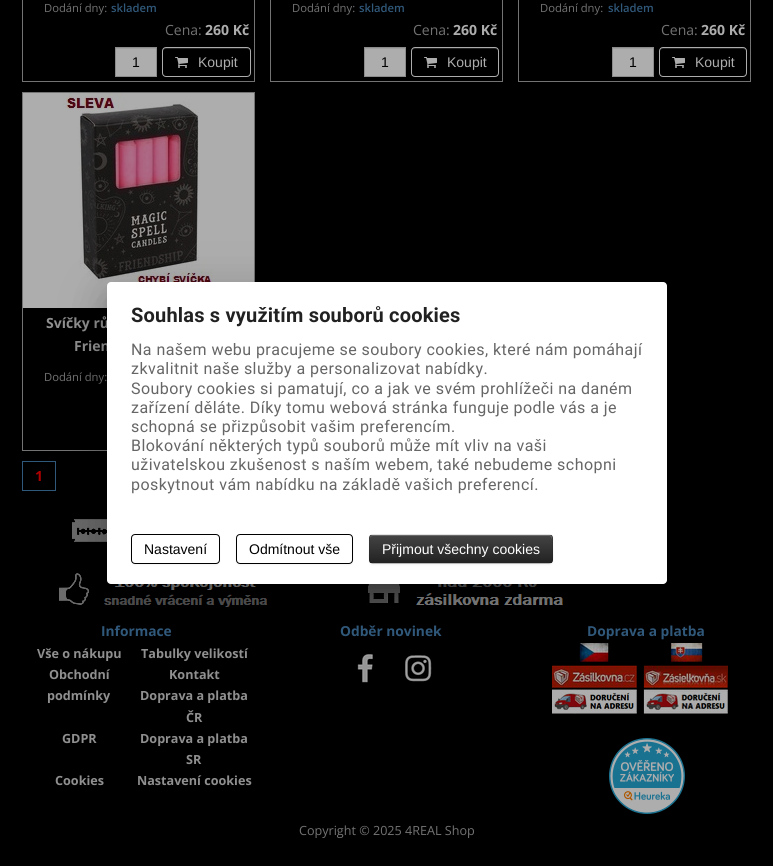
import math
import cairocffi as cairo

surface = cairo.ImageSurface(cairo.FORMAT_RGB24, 773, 866)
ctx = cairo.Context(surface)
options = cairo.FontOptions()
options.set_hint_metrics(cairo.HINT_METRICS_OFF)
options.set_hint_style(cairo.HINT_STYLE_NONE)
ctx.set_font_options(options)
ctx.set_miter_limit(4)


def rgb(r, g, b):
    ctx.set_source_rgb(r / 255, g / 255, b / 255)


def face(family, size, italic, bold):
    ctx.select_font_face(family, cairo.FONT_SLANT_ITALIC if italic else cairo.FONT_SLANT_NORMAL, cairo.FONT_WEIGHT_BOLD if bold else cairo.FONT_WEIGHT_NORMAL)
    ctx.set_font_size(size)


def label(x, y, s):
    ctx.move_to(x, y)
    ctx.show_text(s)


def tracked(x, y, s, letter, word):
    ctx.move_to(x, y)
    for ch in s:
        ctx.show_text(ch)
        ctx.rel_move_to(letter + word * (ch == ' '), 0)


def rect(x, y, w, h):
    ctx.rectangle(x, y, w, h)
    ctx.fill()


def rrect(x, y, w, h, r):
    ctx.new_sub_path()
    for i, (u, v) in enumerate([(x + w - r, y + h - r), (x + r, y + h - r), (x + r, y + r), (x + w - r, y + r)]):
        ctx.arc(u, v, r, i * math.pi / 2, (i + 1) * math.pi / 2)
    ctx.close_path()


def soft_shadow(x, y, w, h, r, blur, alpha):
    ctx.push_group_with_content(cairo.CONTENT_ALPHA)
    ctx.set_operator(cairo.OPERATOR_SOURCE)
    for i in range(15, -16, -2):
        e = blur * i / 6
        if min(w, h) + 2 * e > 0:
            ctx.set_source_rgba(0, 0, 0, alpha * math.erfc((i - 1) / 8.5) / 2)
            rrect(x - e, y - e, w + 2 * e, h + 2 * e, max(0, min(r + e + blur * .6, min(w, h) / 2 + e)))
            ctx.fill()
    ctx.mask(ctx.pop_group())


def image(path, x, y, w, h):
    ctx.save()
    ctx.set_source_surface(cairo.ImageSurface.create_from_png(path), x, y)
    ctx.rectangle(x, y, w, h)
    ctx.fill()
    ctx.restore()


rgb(0, 0, 0)
ctx.paint()
ctx.rectangle(22.5, -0.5, 232, 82)
rgb(115, 115, 115)
ctx.set_line_width(1)
ctx.stroke()
face('Open Sans', 11.25, 0, 0)
label(44, 12, 'Dodání dny:')
face('Open Sans SemiBold', 11.25, 0, 0)
rgb(48, 88, 122)
label(111, 12, 'skladem')
face('Open Sans', 14, 0, 0)
rgb(115, 115, 115)
label(165, 35, 'Cena:')
face('Open Sans', 14, 0, 1)
rgb(173, 173, 173)
label(205, 35, '260 Kč')
rect(116, 49, 40, 27)
rgb(160, 160, 160)
rect(116, 48, 40, 1)
ctx.rectangle(115.5, 47.5, 41, 29)
rgb(139, 139, 139)
ctx.stroke()
face('Liberation Sans', 14, 0, 0)
rgb(0, 0, 0)
label(132, 67, '1')
rgb(35, 35, 35)
ctx.new_path()
ctx.move_to(166, 49)
ctx.line_to(247, 49)
ctx.curve_to(249, 49, 250, 50, 250, 52)
ctx.curve_to(250, 44, 237, 48, 234, 48)
ctx.line_to(180, 48)
ctx.curve_to(176, 48, 163, 44, 163, 52)
ctx.curve_to(163, 50, 164, 49, 166, 49)
ctx.close_path()
ctx.fill()
rrect(162.5, 47.5, 88, 29, 3.5)
rgb(173, 173, 173)
ctx.stroke()
image('image0.png', 175, 57, 13, 11)
label(198, 67, 'Koupit')
ctx.rectangle(270.5, -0.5, 232, 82)
rgb(115, 115, 115)
ctx.stroke()
face('Open Sans', 11.25, 0, 0)
label(292, 12, 'Dodání dny:')
face('Open Sans SemiBold', 11.25, 0, 0)
rgb(48, 88, 122)
label(359, 12, 'skladem')
face('Open Sans', 14, 0, 0)
rgb(115, 115, 115)
label(413, 35, 'Cena:')
face('Open Sans', 14, 0, 1)
rgb(173, 173, 173)
label(453, 35, '260 Kč')
rect(365, 49, 40, 27)
rgb(160, 160, 160)
rect(365, 48, 40, 1)
ctx.rectangle(364.5, 47.5, 41, 29)
rgb(139, 139, 139)
ctx.stroke()
face('Liberation Sans', 14, 0, 0)
rgb(0, 0, 0)
label(381, 67, '1')
rgb(35, 35, 35)
ctx.new_path()
ctx.move_to(415, 49)
ctx.line_to(495, 49)
ctx.curve_to(497, 49, 498, 50, 498, 52)
ctx.curve_to(498, 44, 485, 48, 482, 48)
ctx.line_to(428, 48)
ctx.curve_to(425, 48, 412, 44, 412, 52)
ctx.curve_to(412, 50, 413, 49, 415, 49)
ctx.close_path()
ctx.fill()
rrect(411.5, 47.5, 87, 29, 3.5)
rgb(173, 173, 173)
ctx.stroke()
image('image0.png', 424, 57, 13, 11)
label(447, 67, 'Koupit')
ctx.rectangle(518.5, -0.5, 232, 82)
rgb(115, 115, 115)
ctx.stroke()
face('Open Sans', 11.25, 0, 0)
label(540, 12, 'Dodání dny:')
face('Open Sans SemiBold', 11.25, 0, 0)
rgb(48, 88, 122)
label(608, 12, 'skladem')
face('Open Sans', 14, 0, 0)
rgb(115, 115, 115)
label(661, 35, 'Cena:')
face('Open Sans', 14, 0, 1)
rgb(173, 173, 173)
label(701, 35, '260 Kč')
rect(613, 49, 40, 27)
rgb(160, 160, 160)
rect(613, 48, 40, 1)
ctx.rectangle(612.5, 47.5, 41, 29)
rgb(139, 139, 139)
ctx.stroke()
face('Liberation Sans', 14, 0, 0)
rgb(0, 0, 0)
label(629, 67, '1')
rgb(35, 35, 35)
ctx.new_path()
ctx.move_to(663, 49)
ctx.line_to(743, 49)
ctx.curve_to(745, 49, 746, 50, 746, 52)
ctx.curve_to(746, 44, 733, 48, 730, 48)
ctx.line_to(676, 48)
ctx.curve_to(673, 48, 660, 44, 660, 52)
ctx.curve_to(660, 50, 661, 49, 663, 49)
ctx.close_path()
ctx.fill()
rrect(659.5, 47.5, 87, 29, 3.5)
rgb(173, 173, 173)
ctx.stroke()
image('image0.png', 672, 57, 13, 11)
label(695, 67, 'Koupit')
ctx.rectangle(22.5, 92.5, 232, 358)
rgb(115, 115, 115)
ctx.stroke()
rgb(173, 173, 173)
rect(23, 93, 231, 215)
image('image1.png', 63, 93, 150, 192)
face('Open Sans', 14, 0, 1)
rgb(143, 143, 143)
label(46, 328, 'Svíčky rů')
label(74, 351, 'Frien')
face('Open Sans', 11.25, 0, 0)
rgb(115, 115, 115)
label(44, 381, 'Dodání dny:')
ctx.rectangle(22.5, 461.5, 33, 29)
rgb(48, 88, 122)
ctx.stroke()
face('Open Sans', 14, 0, 1)
rgb(173, 0, 0)
label(35, 481, '1')
image('image2.png', 72, 519, 35, 23)
image('image3.png', 59, 573, 209, 34)
image('image4.png', 367, 584, 196, 21)
image('image5.png', 357, 654, 16, 29)
image('image6.png', 405, 655, 27, 27)
image('image7.png', 552, 643, 85, 71)
image('image8.png', 643, 643, 85, 71)
rgb(0, 0, 0)
soft_shadow(99, 283, 576, 318, 12, 23, 0.12)
soft_shadow(104, 303, 566, 308, 7, 19, 0.14)
soft_shadow(114, 300, 546, 288, 0, 7.5, 0.2)
rgb(255, 255, 255)
rrect(107, 282, 560, 302, 4)
ctx.fill()
face('Roboto', 20, 0, 1)
rgb(33, 33, 33)
tracked(131, 322, 'Souhlas s využitím souborů cookies', 0.2, 0)
face('Roboto', 16, 0, 0)
rgb(102, 102, 102)
tracked(131, 355, 'Na našem webu pracujeme se soubory cookies, které nám pomáhají', 0.45, 0)
tracked(131, 374, 'zkvalitnit naše služby a personalizovat nabídky.', 0.45, 0)
tracked(131, 394, 'Soubory cookies si pamatují, co a jak ve svém prohlížeči na daném', 0.45, 0)
tracked(131, 413, 'zařízení děláte. Díky tomu webová stránka funguje podle vás a je', 0.45, 0)
tracked(131, 432, 'schopná se přizpůsobit vašim preferencím.', 0.45, 0)
tracked(131, 451, 'Blokování některých typů souborů může mít vliv na vaši', 0.45, 0)
tracked(131, 470, 'uživatelskou zkušenost s naším webem, také nebudeme schopni', 0.45, 0)
tracked(131, 490, 'poskytnout vám nabídku na základě vašich preferencí.', 0.45, 0)
rgb(0, 0, 0)
soft_shadow(131, 535, 89, 30, 4, 1, 0.05)
rgb(255, 255, 255)
rrect(131.5, 534.5, 88, 29, 3.5)
ctx.fill_preserve()
rgb(0, 0, 0)
ctx.stroke()
face('Liberation Sans', 14, 0, 0)
label(144, 554, 'Nastavení')
rgb(0, 0, 0)
soft_shadow(236, 535, 117, 30, 4, 1, 0.05)
rgb(255, 255, 255)
rrect(236.5, 534.5, 116, 29, 3.5)
ctx.fill_preserve()
rgb(0, 0, 0)
ctx.stroke()
label(249, 554, 'Odmítnout vše')
rgb(0, 0, 0)
soft_shadow(369, 535, 184, 30, 4, 1, 0.05)
ctx.save()
rrect(369, 534, 184, 30, 4)
ctx.clip()
gradient = cairo.LinearGradient(461, 535, 461, 563)
gradient.add_color_stop_rgba(0, 0.267, 0.267, 0.267, 1)
gradient.add_color_stop_rgba(1, 0.133, 0.133, 0.133, 1)
ctx.set_source(gradient)
rect(369, 535, 184, 28)
ctx.restore()
rgb(105, 105, 105)
ctx.new_path()
ctx.move_to(373, 536)
ctx.line_to(550, 536)
ctx.line_to(551, 537)
ctx.line_to(552, 539)
ctx.line_to(552, 538)
ctx.curve_to(552, 536, 551, 535, 549, 535)
ctx.line_to(373, 535)
ctx.curve_to(371, 535, 370, 536, 370, 538)
ctx.line_to(370, 539)
ctx.curve_to(370, 537, 371, 536, 373, 536)
ctx.close_path()
ctx.fill()
ctx.new_path()
ctx.move_to(551.5, 562.5)
ctx.line_to(549, 563.5)
ctx.line_to(372.5, 563.5)
ctx.line_to(370.5, 562.5)
ctx.set_source_rgba(0, 0, 0, 0.25)
ctx.stroke()
ctx.new_path()
ctx.move_to(370.5, 562.5)
ctx.curve_to(368.5, 560.5, 369.5, 552, 369.5, 549)
ctx.line_to(369.5, 541.5)
ctx.curve_to(369.5, 539, 369, 534.5, 373, 534.5)
ctx.line_to(549, 534.5)
ctx.curve_to(553, 534.5, 552.5, 539, 552.5, 541.5)
ctx.line_to(552.5, 549)
ctx.curve_to(552.5, 552, 553.5, 560.5, 551.5, 562.5)
ctx.set_source_rgba(0, 0, 0, 0.1)
ctx.stroke()
rgb(255, 255, 255)
label(382, 554, 'Přijmout všechny cookies')
face('Open Sans', 13.75, 0, 1)
rgb(48, 88, 122)
label(101, 636, 'Informace')
face('Open Sans', 12.6, 0, 1)
rgb(143, 143, 143)
label(37, 658, 'Vše o nákupu')
label(141, 658, 'Tabulky velikostí')
label(49, 679, 'Obchodní')
label(47, 700, 'podmínky')
label(169, 679, 'Kontakt')
label(140, 700, 'Doprava a platba')
label(186, 722, 'ČR')
label(62, 743, 'GDPR')
label(140, 743, 'Doprava a platba')
label(186, 764, 'SR')
label(55, 785, 'Cookies')
label(137, 785, 'Nastavení cookies')
face('Open Sans', 13.75, 0, 1)
rgb(48, 88, 122)
label(340, 636, 'Odběr novinek')
label(587, 636, 'Doprava a platba')
image('image9.png', 609, 738, 76, 76)
face('Open Sans', 12.6, 0, 0)
rgb(115, 115, 115)
label(299, 835, 'Copyright © 2025 4REAL Shop')
surface.write_to_png('render.png')
